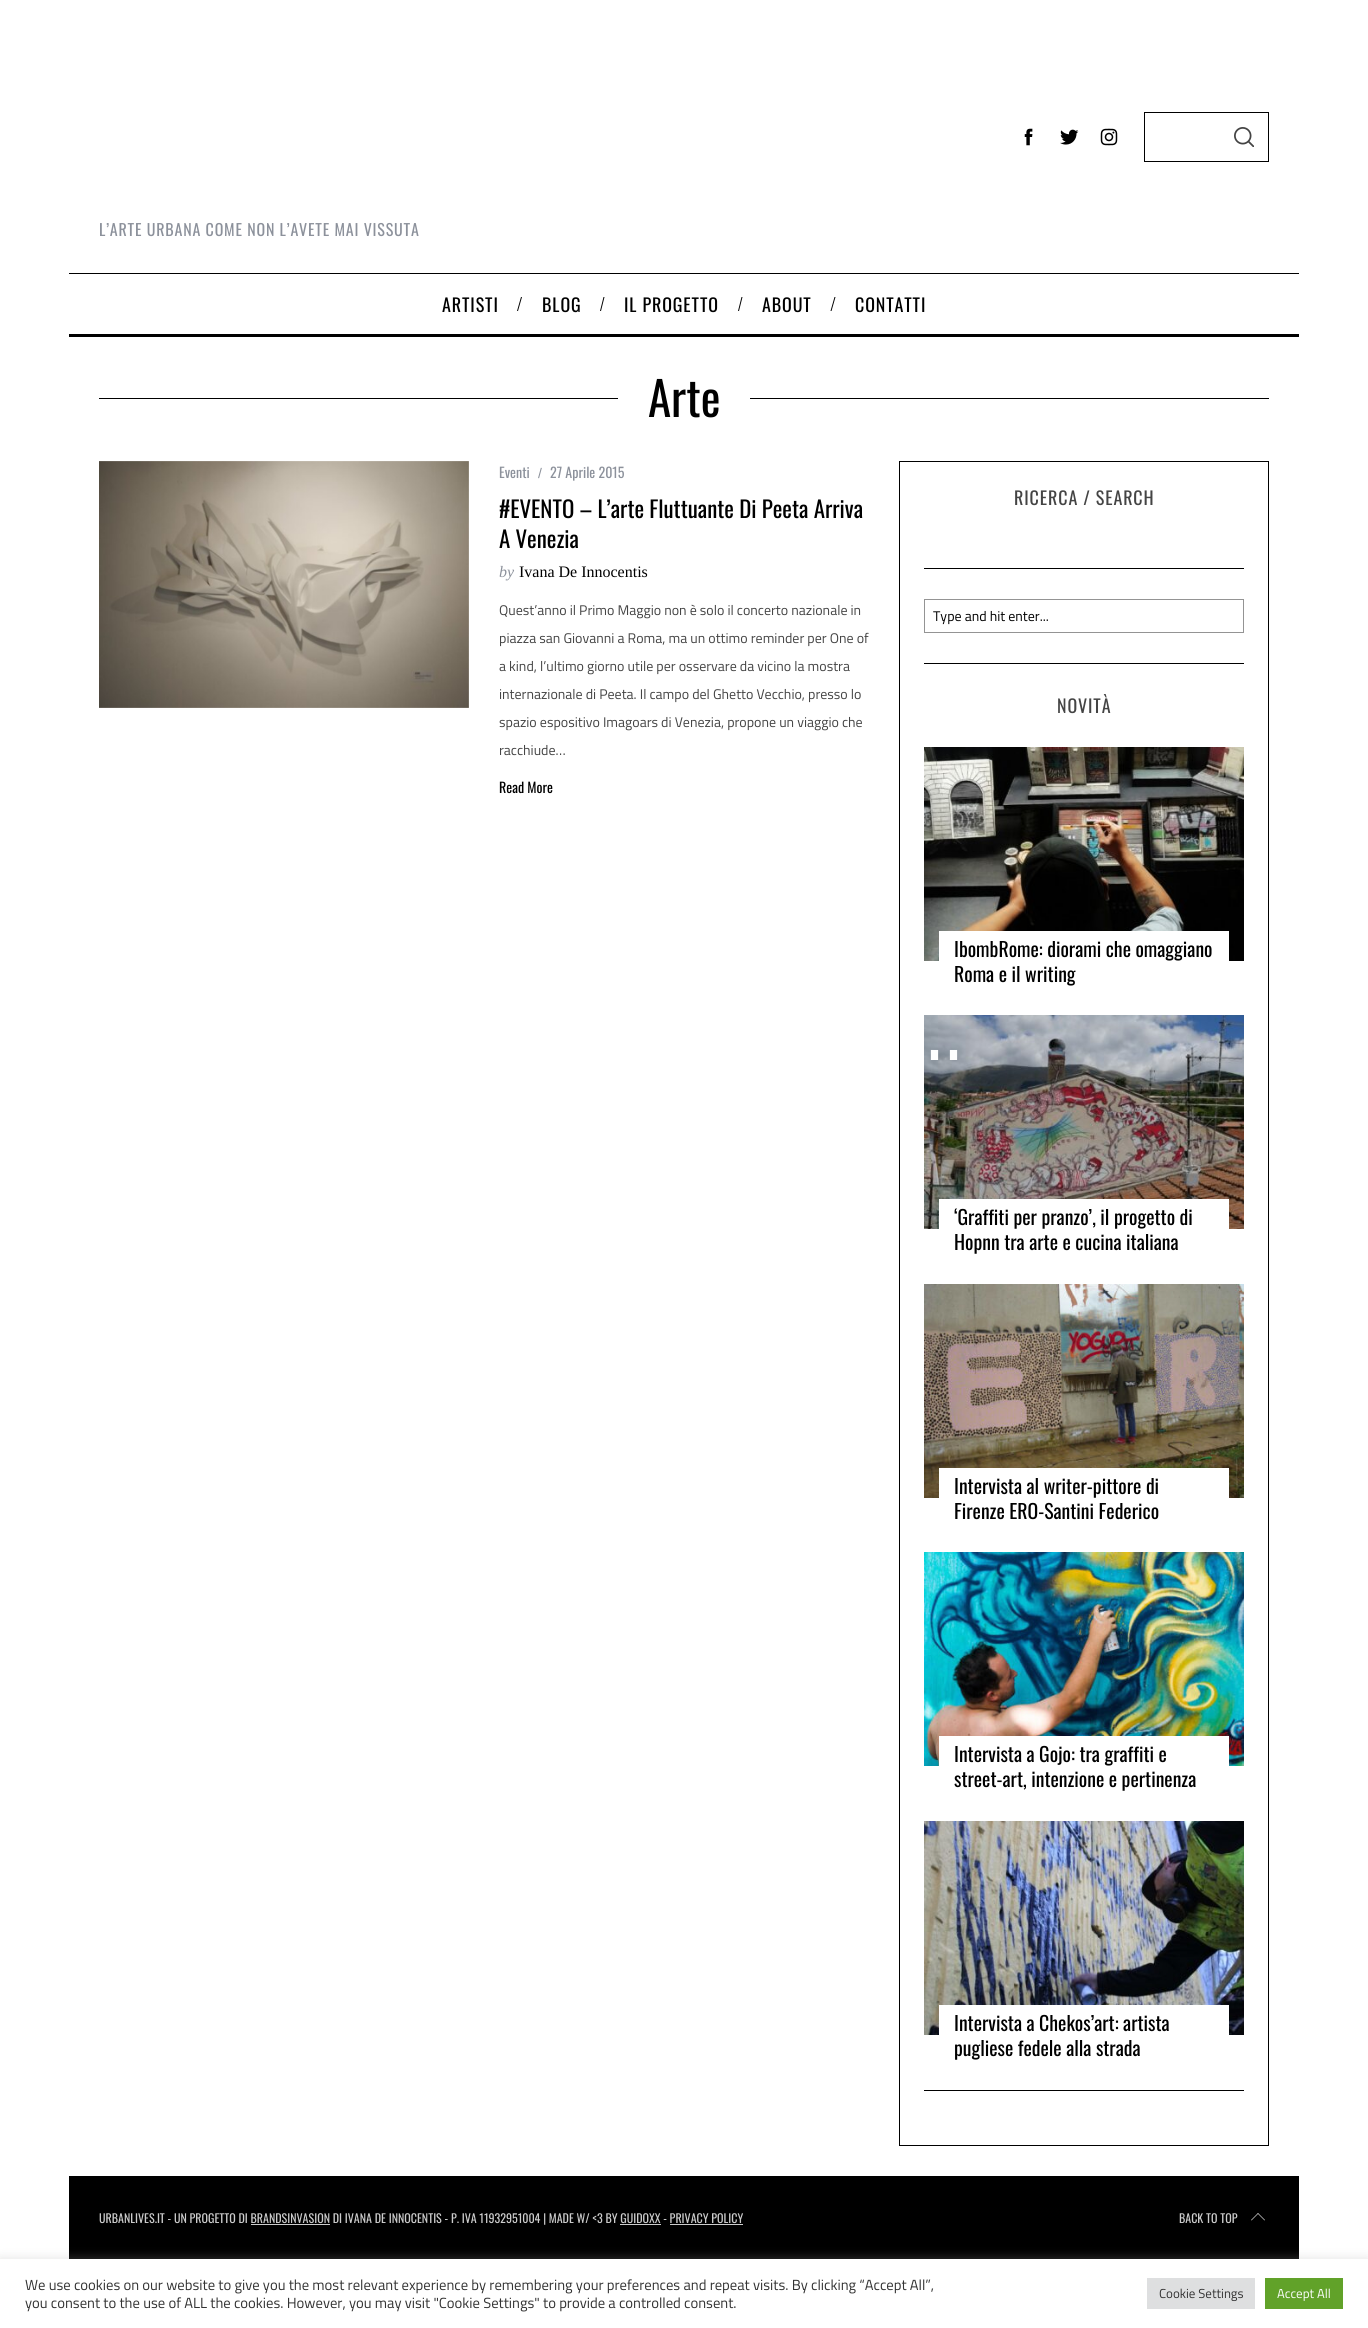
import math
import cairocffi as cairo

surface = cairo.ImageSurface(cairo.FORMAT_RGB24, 1368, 2328)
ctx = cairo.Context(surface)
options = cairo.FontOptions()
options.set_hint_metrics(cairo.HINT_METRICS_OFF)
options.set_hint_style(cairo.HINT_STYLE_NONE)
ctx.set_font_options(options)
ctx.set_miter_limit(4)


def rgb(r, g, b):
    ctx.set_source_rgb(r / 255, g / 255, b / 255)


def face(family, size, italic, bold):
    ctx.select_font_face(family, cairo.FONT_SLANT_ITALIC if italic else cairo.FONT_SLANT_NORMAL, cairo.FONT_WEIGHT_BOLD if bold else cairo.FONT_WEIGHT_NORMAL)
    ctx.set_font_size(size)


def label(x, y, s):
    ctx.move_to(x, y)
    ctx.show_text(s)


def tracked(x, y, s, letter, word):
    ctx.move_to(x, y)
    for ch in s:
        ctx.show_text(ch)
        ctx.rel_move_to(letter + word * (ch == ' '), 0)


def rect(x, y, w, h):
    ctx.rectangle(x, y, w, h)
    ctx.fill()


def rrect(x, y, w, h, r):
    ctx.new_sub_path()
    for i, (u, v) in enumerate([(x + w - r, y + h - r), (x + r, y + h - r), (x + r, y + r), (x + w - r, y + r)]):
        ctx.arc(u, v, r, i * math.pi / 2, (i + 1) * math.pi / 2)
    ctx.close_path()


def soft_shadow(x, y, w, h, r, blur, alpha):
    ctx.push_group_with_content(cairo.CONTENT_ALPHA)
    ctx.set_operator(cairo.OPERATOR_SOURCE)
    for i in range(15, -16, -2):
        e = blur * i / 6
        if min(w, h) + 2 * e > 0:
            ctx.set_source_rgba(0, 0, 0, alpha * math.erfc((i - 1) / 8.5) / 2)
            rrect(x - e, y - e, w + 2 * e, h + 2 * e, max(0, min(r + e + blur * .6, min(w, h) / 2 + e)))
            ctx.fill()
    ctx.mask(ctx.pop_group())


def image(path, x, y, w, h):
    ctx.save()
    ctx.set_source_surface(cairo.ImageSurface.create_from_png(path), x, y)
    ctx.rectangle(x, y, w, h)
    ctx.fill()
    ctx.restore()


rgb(255, 255, 255)
ctx.paint()
image('image0.png', 1024, 128, 9, 18)
image('image1.png', 1060, 129, 19, 16)
image('image2.png', 1100, 128, 18, 18)
ctx.rectangle(1144.5, 112.5, 124, 49)
rgb(0, 0, 0)
ctx.set_line_width(1)
ctx.stroke()
image('image3.png', 1234, 127, 20, 20)
face('Oswald', 16, 0, 0)
rgb(140, 145, 155)
tracked(99, 236, 'L’ARTE URBANA COME NON L’AVETE MAI VISSUTA', 0.8, 0)
rgb(0, 0, 0)
rect(69, 273, 1230, 1)
rect(69, 334, 1230, 3)
face('Oswald', 18, 0, 0)
tracked(442, 312, 'ARTISTI', 0.9, 0)
ctx.new_path()
ctx.move_to(521, 297)
ctx.line_to(522, 297)
ctx.line_to(518, 311)
ctx.line_to(517, 311)
ctx.close_path()
ctx.fill()
tracked(542, 312, 'BLOG', 0.9, 0)
ctx.new_path()
ctx.move_to(603.5, 297)
ctx.line_to(604.5, 297)
ctx.line_to(601, 311)
ctx.line_to(600, 311)
ctx.close_path()
ctx.fill()
tracked(624, 312, 'IL PROGETTO', 0.9, 0)
ctx.new_path()
ctx.move_to(741.5, 297)
ctx.line_to(742.5, 297)
ctx.line_to(739, 311)
ctx.line_to(738, 311)
ctx.close_path()
ctx.fill()
tracked(762, 312, 'ABOUT', 0.9, 0)
ctx.new_path()
ctx.move_to(834.5, 297)
ctx.line_to(835.5, 297)
ctx.line_to(831.5, 311)
ctx.line_to(830.5, 311)
ctx.close_path()
ctx.fill()
tracked(855, 312, 'CONTATTI', 0.9, 0)
rect(99, 398, 519, 1)
face('Oswald', 47, 0, 0)
label(648, 417, 'Arte')
rect(750, 398, 519, 1)
image('image4.png', 99, 461, 370, 247)
face('Oswald', 14, 0, 0)
rgb(140, 145, 155)
label(499, 478, 'Eventi')
face('Liberation Sans', 14, 0, 0)
label(538, 478, '/')
face('Oswald', 14, 0, 0)
label(550, 478, '27 Aprile 2015')
face('Oswald', 22.9, 0, 0)
rgb(0, 0, 0)
label(499, 518, '#EVENTO – L’arte Fluttuante Di Peeta Arriva')
label(499, 548, 'A Venezia')
face('Liberation Serif', 16, 1, 0)
rgb(140, 145, 155)
label(499, 577, 'by')
face('Liberation Serif', 16, 0, 0)
rgb(0, 0, 0)
label(519, 577, 'Ivana De Innocentis')
face('Titillium Web', 14, 0, 0)
rgb(68, 68, 68)
label(499, 615, 'Quest’anno il Primo Maggio non è solo il concerto nazionale in')
label(499, 643, 'piazza san Giovanni a Roma, ma un ottimo reminder per One of')
label(499, 671, 'a kind, l’ultimo giorno utile per osservare da vicino la mostra')
label(499, 699, 'internazionale di Peeta. Il campo del Ghetto Vecchio, presso lo')
label(499, 727, 'spazio espositivo Imagoars di Venezia, propone un viaggio che')
label(499, 755, 'racchiude…')
face('Oswald', 14, 0, 0)
rgb(0, 0, 0)
label(499, 793, 'Read More')
ctx.rectangle(899.5, 461.5, 369, 1684)
ctx.stroke()
rect(924, 568, 320, 1)
face('Oswald', 18, 0, 0)
rgb(68, 68, 68)
tracked(1014, 505, 'RICERCA / SEARCH', 0.9, 0)
rgb(0, 0, 0)
rect(924, 663, 320, 1)
ctx.rectangle(924.5, 599.5, 319, 33)
rgb(148, 148, 148)
ctx.stroke()
face('Titillium Web', 14, 0, 0)
rgb(0, 0, 0)
label(933, 621, 'Type and hit enter...')
rect(924, 2090, 320, 1)
face('Oswald', 18, 0, 0)
rgb(68, 68, 68)
tracked(1057, 713, 'NOVITÀ', 0.9, 0)
image('image5.png', 924, 747, 320, 214)
rgb(255, 255, 255)
rect(939, 931, 290, 30)
face('Oswald', 19.75, 0, 0)
rgb(0, 0, 0)
label(954, 957, 'IbombRome: diorami che omaggiano')
label(954, 982, 'Roma e il writing')
image('image6.png', 924, 1015, 320, 214)
rgb(255, 255, 255)
rect(939, 1199, 290, 30)
rgb(0, 0, 0)
label(954, 1225, '‘Graffiti per pranzo’, il progetto di')
label(954, 1250, 'Hopnn tra arte e cucina italiana')
image('image7.png', 924, 1284, 320, 214)
rgb(255, 255, 255)
rect(939, 1468, 290, 30)
rgb(0, 0, 0)
label(954, 1494, 'Intervista al writer-pittore di')
label(954, 1519, 'Firenze ERO-Santini Federico')
image('image8.png', 924, 1552, 320, 214)
rgb(255, 255, 255)
rect(939, 1736, 290, 30)
rgb(0, 0, 0)
label(954, 1762, 'Intervista a Gojo: tra graffiti e')
label(954, 1787, 'street-art, intenzione e pertinenza')
image('image9.png', 924, 1821, 320, 214)
rgb(255, 255, 255)
rect(939, 2005, 290, 30)
rgb(0, 0, 0)
label(954, 2031, 'Intervista a Chekos’art: artista')
label(954, 2056, 'pugliese fedele alla strada')
face('Titillium Web', 88, 0, 0)
rgb(253, 254, 254)
label(925, 1060, '..')
rgb(0, 0, 0)
rect(69, 2176, 1230, 83)
face('Oswald', 12, 0, 0)
rgb(204, 204, 204)
label(99, 2223, 'URBANLIVES.IT - UN PROGETTO DI BRANDSINVASION DI IVANA DE INNOCENTIS - P. IVA 11932951004 | MADE W/ <3 BY GUIDOXX - PRIVACY POLICY')
rect(251, 2224, 79, 1)
rect(620, 2224, 41, 1)
rect(670, 2224, 73, 1)
label(1179, 2223, 'BACK TO TOP')
ctx.new_path()
ctx.move_to(1251, 2220)
ctx.line_to(1258, 2213)
ctx.line_to(1258.5, 2213.5)
ctx.line_to(1251.5, 2220.5)
ctx.close_path()
ctx.fill()
ctx.new_path()
ctx.move_to(1257.5, 2213.5)
ctx.line_to(1258, 2213)
ctx.line_to(1265, 2220)
ctx.line_to(1264.5, 2220.5)
ctx.close_path()
ctx.fill()
rgb(172, 171, 171)
soft_shadow(0, 2258, 1368, 69, 0, 5, 0.3)
rgb(255, 255, 255)
rect(0, 2259, 1368, 69)
face('Titillium Web', 14.67, 0, 0)
rgb(51, 51, 51)
label(25, 2290, 'We use cookies on our website to give you the most relevant experience by remembering your preferences and repeat visits. By clicking “Accept All”,')
label(25, 2308, 'you consent to the use of ALL the cookies. However, you may visit "Cookie Settings" to provide a controlled consent.')
rgb(222, 223, 224)
rect(1147, 2278, 108, 31)
face('Titillium Web', 13, 0, 0)
rgb(51, 51, 51)
label(1159, 2298, 'Cookie Settings')
rgb(97, 162, 41)
rect(1265, 2278, 78, 31)
rgb(253, 254, 254)
label(1277, 2298, 'Accept All')
surface.write_to_png('render.png')
